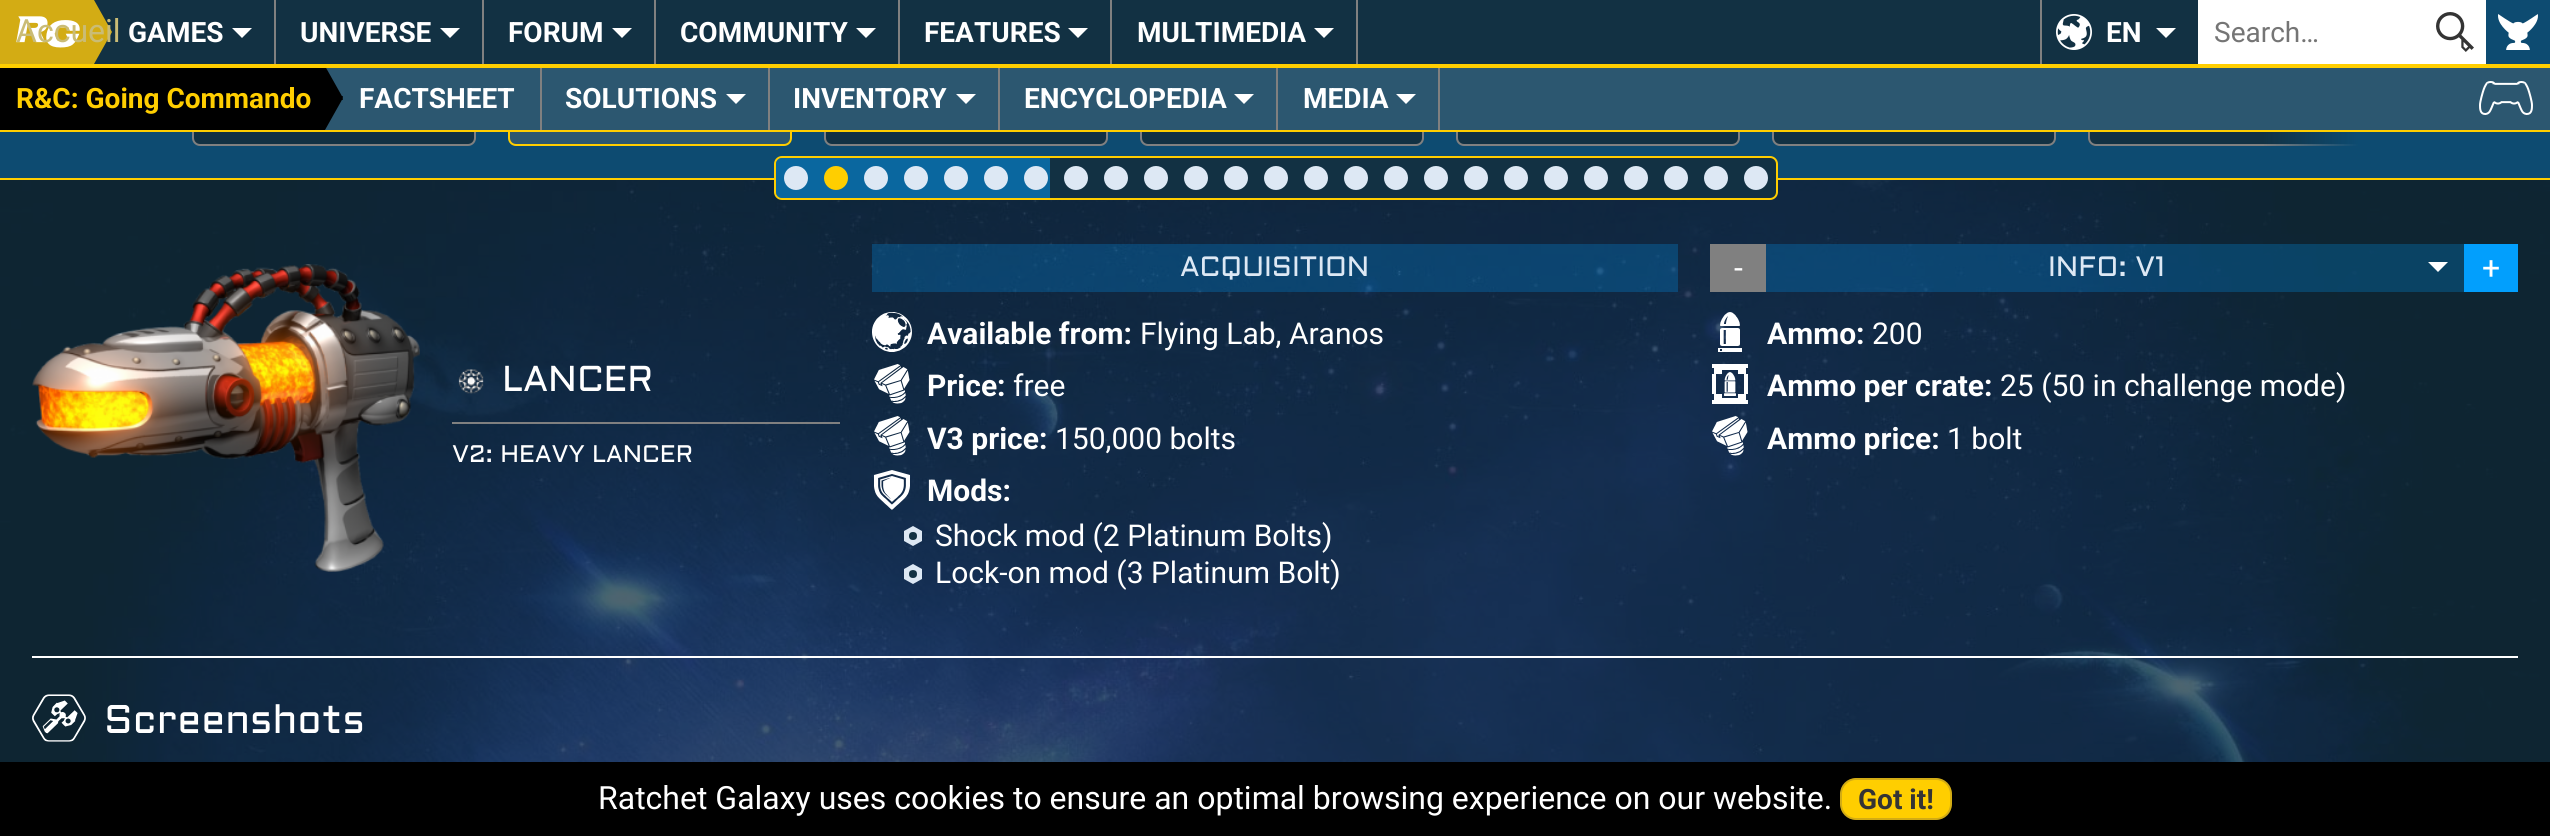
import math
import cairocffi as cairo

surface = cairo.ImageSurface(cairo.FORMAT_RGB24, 2550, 836)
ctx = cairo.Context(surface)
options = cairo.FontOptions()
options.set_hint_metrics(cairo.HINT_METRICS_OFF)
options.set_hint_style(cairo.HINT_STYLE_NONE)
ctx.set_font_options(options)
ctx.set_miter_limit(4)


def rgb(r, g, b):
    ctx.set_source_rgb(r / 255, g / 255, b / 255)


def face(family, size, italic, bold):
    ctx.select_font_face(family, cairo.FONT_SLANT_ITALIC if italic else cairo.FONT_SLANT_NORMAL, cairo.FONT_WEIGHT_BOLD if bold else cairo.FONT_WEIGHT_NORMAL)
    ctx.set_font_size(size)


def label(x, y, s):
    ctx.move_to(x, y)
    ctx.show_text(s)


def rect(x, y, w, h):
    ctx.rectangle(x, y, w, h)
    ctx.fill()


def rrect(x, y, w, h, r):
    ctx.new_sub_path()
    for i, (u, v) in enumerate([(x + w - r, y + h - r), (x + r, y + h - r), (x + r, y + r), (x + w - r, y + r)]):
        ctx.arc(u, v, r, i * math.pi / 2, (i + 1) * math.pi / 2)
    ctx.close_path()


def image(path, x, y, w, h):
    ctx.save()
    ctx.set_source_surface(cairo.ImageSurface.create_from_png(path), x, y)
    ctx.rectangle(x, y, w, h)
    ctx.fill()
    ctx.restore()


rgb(255, 255, 255)
ctx.paint()
image('image0.png', 0, 180, 2550, 582)
rgb(13, 75, 113)
rect(0, 132, 2550, 46)
rgb(18, 49, 67)
rrect(193, -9, 282, 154, 7)
ctx.fill_preserve()
rgb(128, 128, 128)
ctx.stroke()
rgb(44, 87, 112)
rrect(509, -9, 282, 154, 7)
ctx.fill_preserve()
rgb(255, 206, 0)
ctx.stroke()
rgb(18, 49, 67)
rrect(825, -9, 282, 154, 7)
ctx.fill_preserve()
rgb(128, 128, 128)
ctx.stroke()
rgb(18, 49, 67)
rrect(1141, -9, 282, 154, 7)
ctx.fill_preserve()
rgb(128, 128, 128)
ctx.stroke()
rgb(18, 49, 67)
rrect(1457, -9, 282, 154, 7)
ctx.fill_preserve()
rgb(128, 128, 128)
ctx.stroke()
rgb(18, 49, 67)
rrect(1773, -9, 282, 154, 7)
ctx.fill_preserve()
rgb(128, 128, 128)
ctx.stroke()
rgb(18, 49, 67)
ctx.new_path()
ctx.move_to(2096, -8)
ctx.line_to(2358, -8)
ctx.line_to(2358, 146)
ctx.line_to(2096, 146)
ctx.curve_to(2091.5, 146, 2088, 142.5, 2088, 138)
ctx.line_to(2088, 0)
ctx.curve_to(2088, -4.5, 2091.5, -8, 2096, -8)
ctx.close_path()
ctx.fill()
ctx.save()
ctx.rectangle(2088, 0, 270, 146)
ctx.clip()
rrect(2089, -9, 282, 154, 7)
rgb(128, 128, 128)
ctx.stroke()
ctx.restore()
rect(94, 0, 1996, 64)
rgb(44, 87, 112)
rect(325, 68, 2225, 62)
rgb(0, 0, 0)
rect(0, 68, 279, 62)
ctx.new_path()
ctx.move_to(260, 68)
ctx.line_to(279, 100)
ctx.line_to(343, 100)
ctx.line_to(342, 98)
ctx.line_to(279, 98)
ctx.line_to(262, 68)
ctx.close_path()
ctx.fill()
ctx.new_path()
ctx.move_to(261, 66)
ctx.line_to(325, 66)
ctx.line_to(343, 98)
ctx.line_to(279, 98)
ctx.close_path()
ctx.fill()
rgb(128, 128, 128)
rect(540, 66, 2, 64)
rect(768, 66, 2, 64)
rect(998, 66, 2, 64)
rect(1276, 66, 2, 64)
rect(1438, 66, 2, 64)
rgb(255, 206, 0)
rect(0, 64, 2550, 4)
rgb(211, 172, 20)
rect(0, 0, 47, 64)
ctx.new_path()
ctx.move_to(29, 2)
ctx.line_to(47, 34)
ctx.line_to(111, 34)
ctx.line_to(110, 32)
ctx.line_to(48, 32)
ctx.line_to(31, 2)
ctx.close_path()
ctx.fill()
ctx.new_path()
ctx.move_to(30, 0)
ctx.line_to(94, 0)
ctx.line_to(112, 32)
ctx.line_to(48, 32)
ctx.close_path()
ctx.fill()
ctx.new_path()
ctx.move_to(47, 30)
ctx.line_to(29, 62)
ctx.line_to(31, 62)
ctx.line_to(48, 32)
ctx.line_to(110, 32)
ctx.line_to(111, 30)
ctx.close_path()
ctx.fill()
ctx.new_path()
ctx.move_to(48, 32)
ctx.line_to(112, 32)
ctx.line_to(94, 64)
ctx.line_to(30, 64)
ctx.close_path()
ctx.fill()
image('image1.png', 16, 16, 64, 32)
face('Roboto', 32, 0, 0)
rgb(202, 188, 118)
label(16, 42, 'Accueil')
rgb(128, 128, 128)
rect(274, 0, 2, 64)
face('Roboto', 28, 0, 1)
rgb(255, 255, 255)
label(128, 42, 'GAMES')
ctx.new_path()
ctx.move_to(232, 28)
ctx.line_to(252, 28)
ctx.line_to(242, 38)
ctx.close_path()
ctx.fill()
rgb(128, 128, 128)
rect(482, 0, 2, 64)
rgb(255, 255, 255)
label(300, 42, 'UNIVERSE')
ctx.new_path()
ctx.move_to(440, 28)
ctx.line_to(460, 28)
ctx.line_to(450, 38)
ctx.close_path()
ctx.fill()
rgb(128, 128, 128)
rect(654, 0, 2, 64)
rgb(255, 255, 255)
label(508, 42, 'FORUM')
ctx.new_path()
ctx.move_to(612, 28)
ctx.line_to(632, 28)
ctx.line_to(622, 38)
ctx.close_path()
ctx.fill()
rgb(128, 128, 128)
rect(898, 0, 2, 64)
rgb(255, 255, 255)
label(680, 42, 'COMMUNITY')
ctx.new_path()
ctx.move_to(856, 28)
ctx.line_to(876, 28)
ctx.line_to(866, 38)
ctx.close_path()
ctx.fill()
rgb(128, 128, 128)
rect(1110, 0, 2, 64)
rgb(255, 255, 255)
label(924, 42, 'FEATURES')
ctx.new_path()
ctx.move_to(1068, 28)
ctx.line_to(1088, 28)
ctx.line_to(1078, 38)
ctx.close_path()
ctx.fill()
rgb(128, 128, 128)
rect(1356, 0, 2, 64)
rgb(255, 255, 255)
label(1137, 42, 'MULTIMEDIA')
ctx.new_path()
ctx.move_to(1314, 28)
ctx.line_to(1334, 28)
ctx.line_to(1324, 38)
ctx.close_path()
ctx.fill()
rgb(128, 128, 128)
rect(2040, 0, 2, 64)
image('image2.png', 2056, 14, 36, 36)
rgb(255, 255, 255)
label(2106, 42, 'EN')
ctx.new_path()
ctx.move_to(2156, 28)
ctx.line_to(2176, 28)
ctx.line_to(2166, 38)
ctx.close_path()
ctx.fill()
rect(2198, 0, 160, 64)
face('Roboto', 28, 0, 0)
rgb(117, 117, 117)
label(2214, 42, 'Search…')
image('image3.png', 2436, 12, 38, 40)
rgb(13, 75, 113)
rect(2486, 0, 64, 64)
image('image4.png', 2498, 14, 40, 36)
rgb(255, 206, 0)
rect(0, 130, 2550, 2)
image('image5.png', 2479, 81, 54, 34)
rgb(0, 0, 0)
ctx.new_path()
ctx.move_to(279, 96)
ctx.line_to(260, 128)
ctx.line_to(262, 128)
ctx.line_to(279, 98)
ctx.line_to(342, 98)
ctx.line_to(343, 96)
ctx.close_path()
ctx.fill()
ctx.new_path()
ctx.move_to(279, 98)
ctx.line_to(343, 98)
ctx.line_to(325, 130)
ctx.line_to(261, 130)
ctx.close_path()
ctx.fill()
face('Roboto', 28, 0, 1)
rgb(255, 206, 0)
label(16, 108, 'R&C: Going Commando')
rgb(255, 255, 255)
label(359, 108, 'FACTSHEET')
label(565, 108, 'SOLUTIONS')
ctx.new_path()
ctx.move_to(726, 94)
ctx.line_to(746, 94)
ctx.line_to(736, 104)
ctx.close_path()
ctx.fill()
label(793, 108, 'INVENTORY')
ctx.new_path()
ctx.move_to(956, 94)
ctx.line_to(976, 94)
ctx.line_to(966, 104)
ctx.close_path()
ctx.fill()
label(1024, 108, 'ENCYCLOPEDIA')
ctx.new_path()
ctx.move_to(1234, 94)
ctx.line_to(1254, 94)
ctx.line_to(1244, 104)
ctx.close_path()
ctx.fill()
label(1303, 108, 'MEDIA')
ctx.new_path()
ctx.move_to(1396, 94)
ctx.line_to(1416, 94)
ctx.line_to(1406, 104)
ctx.close_path()
ctx.fill()
rgb(255, 206, 0)
rect(0, 178, 2550, 2)
gradient = cairo.LinearGradient(2230, 4, 2358, 4)
gradient.add_color_stop_rgba(0.25, 0.051, 0.294, 0.443, 0)
gradient.add_color_stop_rgba(1, 0.051, 0.294, 0.443, 1)
ctx.set_source(gradient)
rect(2264, 132, 94, 14)
rgb(18, 49, 67)
rrect(775, 157, 1002, 42, 7)
ctx.fill_preserve()
rgb(255, 206, 0)
ctx.stroke()
ctx.set_source_rgba(0.008, 0.624, 0.992, 0.5)
ctx.new_path()
ctx.move_to(782, 158)
ctx.line_to(1050, 158)
ctx.line_to(1050, 198)
ctx.line_to(782, 198)
ctx.curve_to(778.5, 198, 776, 195.5, 776, 192)
ctx.line_to(776, 164)
ctx.curve_to(776, 160.5, 778.5, 158, 782, 158)
ctx.close_path()
ctx.fill()
rgb(221, 232, 244)
ctx.arc(796, 178, 11, 0, 2 * math.pi)
ctx.fill_preserve()
ctx.stroke()
rgb(255, 206, 0)
ctx.arc(836, 178, 11, 0, 2 * math.pi)
ctx.fill_preserve()
ctx.stroke()
rgb(221, 232, 244)
ctx.arc(876, 178, 11, 0, 2 * math.pi)
ctx.fill_preserve()
ctx.stroke()
ctx.arc(916, 178, 11, 0, 2 * math.pi)
ctx.fill_preserve()
ctx.stroke()
ctx.arc(956, 178, 11, 0, 2 * math.pi)
ctx.fill_preserve()
ctx.stroke()
ctx.arc(996, 178, 11, 0, 2 * math.pi)
ctx.fill_preserve()
ctx.stroke()
ctx.arc(1036, 178, 11, 0, 2 * math.pi)
ctx.fill_preserve()
ctx.stroke()
ctx.arc(1076, 178, 11, 0, 2 * math.pi)
ctx.fill_preserve()
ctx.stroke()
ctx.arc(1116, 178, 11, 0, 2 * math.pi)
ctx.fill_preserve()
ctx.stroke()
ctx.arc(1156, 178, 11, 0, 2 * math.pi)
ctx.fill_preserve()
ctx.stroke()
ctx.arc(1196, 178, 11, 0, 2 * math.pi)
ctx.fill_preserve()
ctx.stroke()
ctx.arc(1236, 178, 11, 0, 2 * math.pi)
ctx.fill_preserve()
ctx.stroke()
ctx.arc(1276, 178, 11, 0, 2 * math.pi)
ctx.fill_preserve()
ctx.stroke()
ctx.arc(1316, 178, 11, 0, 2 * math.pi)
ctx.fill_preserve()
ctx.stroke()
ctx.arc(1356, 178, 11, 0, 2 * math.pi)
ctx.fill_preserve()
ctx.stroke()
ctx.arc(1396, 178, 11, 0, 2 * math.pi)
ctx.fill_preserve()
ctx.stroke()
ctx.arc(1436, 178, 11, 0, 2 * math.pi)
ctx.fill_preserve()
ctx.stroke()
ctx.arc(1476, 178, 11, 0, 2 * math.pi)
ctx.fill_preserve()
ctx.stroke()
ctx.arc(1516, 178, 11, 0, 2 * math.pi)
ctx.fill_preserve()
ctx.stroke()
ctx.arc(1556, 178, 11, 0, 2 * math.pi)
ctx.fill_preserve()
ctx.stroke()
ctx.arc(1596, 178, 11, 0, 2 * math.pi)
ctx.fill_preserve()
ctx.stroke()
ctx.arc(1636, 178, 11, 0, 2 * math.pi)
ctx.fill_preserve()
ctx.stroke()
ctx.arc(1676, 178, 11, 0, 2 * math.pi)
ctx.fill_preserve()
ctx.stroke()
ctx.arc(1716, 178, 11, 0, 2 * math.pi)
ctx.fill_preserve()
ctx.stroke()
ctx.arc(1756, 178, 11, 0, 2 * math.pi)
ctx.fill_preserve()
ctx.stroke()
image('image6.png', 32, 264, 388, 308)
image('image7.png', 458, 369, 26, 25)
face('Aldrich', 36, 0, 0)
rgb(255, 255, 255)
label(502, 391, 'LANCER')
rgb(128, 128, 128)
rect(452, 422, 388, 2)
face('Aldrich', 24, 0, 0)
rgb(255, 255, 255)
label(452, 462, 'V2: HEAVY LANCER')
ctx.set_source_rgba(0.008, 0.624, 0.992, 0.25)
rect(872, 244, 806, 48)
face('Aldrich', 28, 0, 0)
rgb(221, 232, 244)
label(1180, 276, 'ACQUISITION')
image('image8.png', 872, 312, 40, 40)
face('Roboto', 30, 0, 1)
rgb(255, 255, 255)
label(927, 344, 'Available from:')
face('Roboto', 30, 0, 0)
label(1140, 344, 'Flying Lab, Aranos')
image('image9.png', 874, 364, 36, 40)
face('Roboto', 30, 0, 1)
label(927, 396, 'Price:')
face('Roboto', 30, 0, 0)
label(1013, 396, 'free')
image('image10.png', 874, 416, 36, 40)
face('Roboto', 30, 0, 1)
label(927, 449, 'V3 price:')
face('Roboto', 30, 0, 0)
label(1055, 449, '150,000 bolts')
image('image11.png', 874, 470, 36, 40)
face('Roboto', 30, 0, 1)
label(927, 501, 'Mods:')
image('image12.png', 904, 526, 18, 20)
face('Roboto', 30, 0, 0)
label(935, 546, 'Shock mod (2 Platinum Bolts)')
image('image13.png', 904, 564, 18, 20)
label(935, 583, 'Lock-on mod (3 Platinum Bolt)')
rgb(128, 128, 128)
rect(1710, 244, 56, 48)
face('Roboto', 32, 0, 0)
rgb(255, 255, 255)
label(1734, 279, '-')
ctx.set_source_rgba(0.008, 0.624, 0.992, 0.25)
rect(1766, 244, 698, 48)
face('Aldrich', 28, 0, 0)
rgb(221, 232, 244)
label(2048, 276, 'INFO: V1')
rgb(255, 255, 255)
ctx.new_path()
ctx.move_to(2428, 262)
ctx.line_to(2448, 262)
ctx.line_to(2438, 272)
ctx.close_path()
ctx.fill()
rgb(2, 159, 253)
rect(2464, 244, 54, 48)
face('Roboto', 32, 0, 0)
rgb(255, 255, 255)
label(2482, 279, '+')
image('image14.png', 1718, 312, 24, 40)
face('Roboto', 30, 0, 1)
label(1767, 344, 'Ammo:')
face('Roboto', 30, 0, 0)
label(1872, 344, '200')
image('image15.png', 1712, 364, 36, 40)
face('Roboto', 30, 0, 1)
label(1767, 396, 'Ammo per crate:')
face('Roboto', 30, 0, 0)
label(2000, 396, '25 (50 in challenge mode)')
image('image16.png', 1712, 416, 36, 40)
face('Roboto', 30, 0, 1)
label(1767, 449, 'Ammo price:')
face('Roboto', 30, 0, 0)
label(1947, 449, '1 bolt')
rect(32, 656, 2486, 2)
image('image17.png', 32, 694, 54, 48)
face('Aldrich', 40, 0, 0)
label(104, 733, 'Screenshots')
rgb(0, 0, 0)
rect(0, 762, 2550, 74)
face('Roboto', 32, 0, 0)
rgb(255, 255, 255)
label(598, 809, 'Ratchet Galaxy uses cookies to ensure an optimal browsing experience on our website.')
rgb(255, 206, 0)
rrect(1841, 779, 110, 40, 15)
ctx.fill_preserve()
rgb(211, 172, 20)
ctx.stroke()
face('Roboto', 28, 0, 1)
rgb(52, 52, 52)
label(1858, 809, 'Got it!')
surface.write_to_png('render.png')
